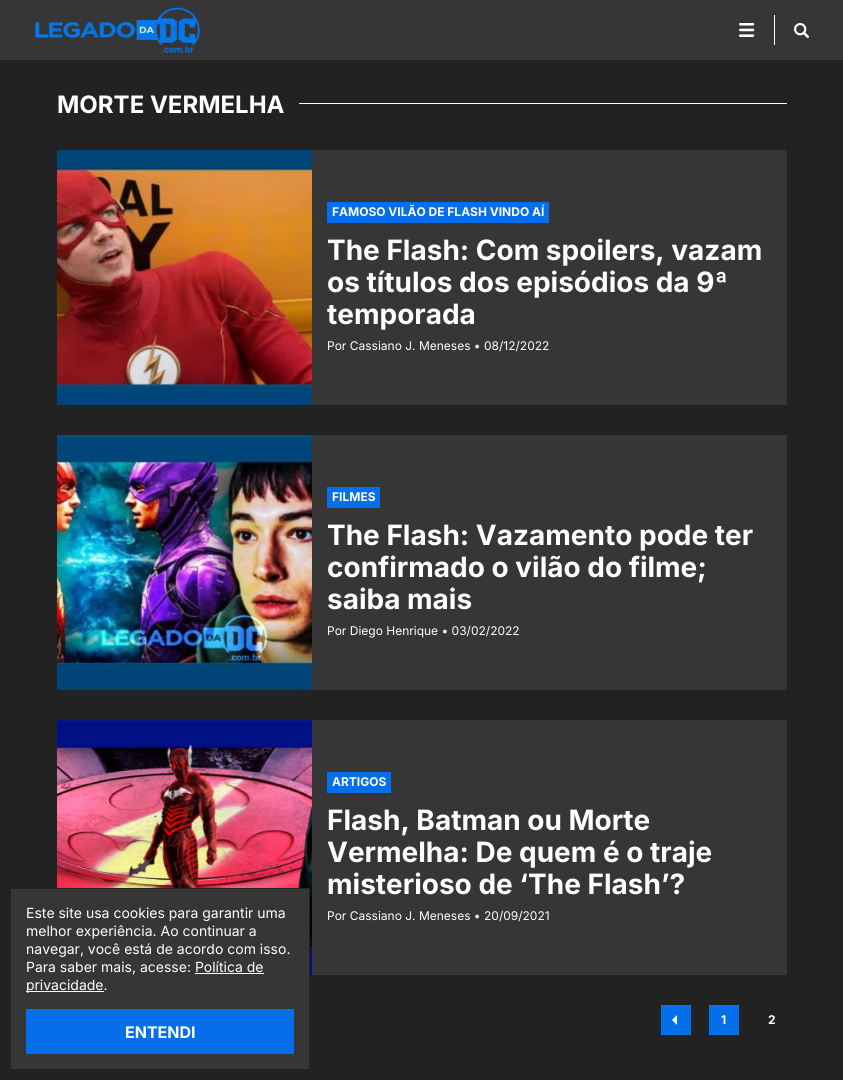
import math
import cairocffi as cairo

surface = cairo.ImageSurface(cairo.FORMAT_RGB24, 843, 1080)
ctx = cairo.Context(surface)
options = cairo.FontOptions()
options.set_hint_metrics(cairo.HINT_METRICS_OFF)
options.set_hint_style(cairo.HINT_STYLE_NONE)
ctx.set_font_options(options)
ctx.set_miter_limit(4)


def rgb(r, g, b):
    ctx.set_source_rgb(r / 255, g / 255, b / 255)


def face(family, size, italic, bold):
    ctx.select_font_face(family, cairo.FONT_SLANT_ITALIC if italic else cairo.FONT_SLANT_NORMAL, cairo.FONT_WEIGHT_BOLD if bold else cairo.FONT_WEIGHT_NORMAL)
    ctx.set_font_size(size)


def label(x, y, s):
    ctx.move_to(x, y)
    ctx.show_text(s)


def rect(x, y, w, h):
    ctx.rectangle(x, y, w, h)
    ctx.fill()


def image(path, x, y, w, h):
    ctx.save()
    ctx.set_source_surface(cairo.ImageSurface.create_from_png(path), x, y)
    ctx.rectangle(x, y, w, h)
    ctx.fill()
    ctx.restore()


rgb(34, 34, 34)
ctx.paint()
rgb(54, 54, 54)
rect(0, 0, 843, 60)
image('image0.png', 35, 7, 165, 46)
image('image1.png', 739, 23, 16, 14)
rgb(255, 255, 255)
rect(774, 15, 1, 30)
image('image2.png', 794, 23, 15, 15)
face('Inter', 24, 0, 1)
label(57, 113, 'MORTE VERMELHA')
rect(299, 103, 488, 1)
rgb(54, 54, 54)
rect(312, 150, 475, 255)
image('image3.png', 57, 150, 255, 255)
rgb(5, 110, 233)
rect(327, 202, 222, 21)
face('Inter', 12, 0, 1)
rgb(255, 255, 255)
label(332, 216, 'FAMOSO VILÃO DE FLASH VINDO AÍ')
face('Inter', 28, 0, 1)
label(327, 260, 'The Flash: Com spoilers, vazam')
label(327, 292, 'os títulos dos episódios da 9ª')
ctx.save()
ctx.rectangle(327, 234, 445, 96)
ctx.clip()
label(327, 324, 'temporada')
ctx.restore()
face('Inter', 12, 0, 0)
label(327, 350, 'Por Cassiano J. Meneses • 08/12/2022')
rgb(54, 54, 54)
rect(312, 435, 475, 255)
image('image4.png', 57, 435, 255, 255)
rgb(5, 110, 233)
rect(327, 487, 53, 21)
face('Inter', 12, 0, 1)
rgb(255, 255, 255)
label(332, 501, 'FILMES')
face('Inter', 28, 0, 1)
label(327, 545, 'The Flash: Vazamento pode ter')
label(327, 577, 'confirmado o vilão do filme;')
label(327, 609, 'saiba mais')
face('Inter', 12, 0, 0)
label(327, 635, 'Por Diego Henrique • 03/02/2022')
rgb(54, 54, 54)
rect(312, 720, 475, 255)
image('image5.png', 57, 720, 255, 255)
rgb(5, 110, 233)
rect(327, 772, 64, 21)
face('Inter', 12, 0, 1)
rgb(255, 255, 255)
label(332, 786, 'ARTIGOS')
face('Inter', 28, 0, 1)
label(327, 830, 'Flash, Batman ou Morte')
label(327, 862, 'Vermelha: De quem é o traje')
label(327, 894, 'misterioso de ‘The Flash’?')
face('Inter', 12, 0, 0)
label(327, 920, 'Por Cassiano J. Meneses • 20/09/2021')
rgb(5, 110, 233)
rect(661, 1005, 30, 30)
rgb(255, 255, 255)
ctx.new_path()
ctx.move_to(677, 1015)
ctx.line_to(677, 1025)
ctx.line_to(672, 1020)
ctx.close_path()
ctx.fill()
rgb(5, 110, 233)
rect(709, 1005, 30, 30)
face('Inter', 12, 0, 1)
rgb(255, 255, 255)
label(721, 1024, '1')
label(768, 1024, '2')
rgb(54, 54, 54)
ctx.rectangle(10.5, 888.5, 299, 181)
ctx.fill_preserve()
rgb(34, 34, 34)
ctx.set_line_width(1)
ctx.stroke()
face('Inter', 14, 0, 0)
rgb(255, 255, 255)
label(26, 918, 'Este site usa cookies para garantir uma')
label(26, 936, 'melhor experiência. Ao continuar a')
label(26, 954, 'navegar, você está de acordo com isso.')
label(26, 972, 'Para saber mais, acesse: Política de')
rect(26, 991, 78, 1)
label(26, 990, 'privacidade.')
rect(195, 973, 69, 1)
rgb(5, 110, 233)
rect(26, 1009, 268, 45)
face('Inter', 16, 0, 1)
rgb(255, 255, 255)
label(125, 1038, 'ENTENDI')
surface.write_to_png('render.png')
